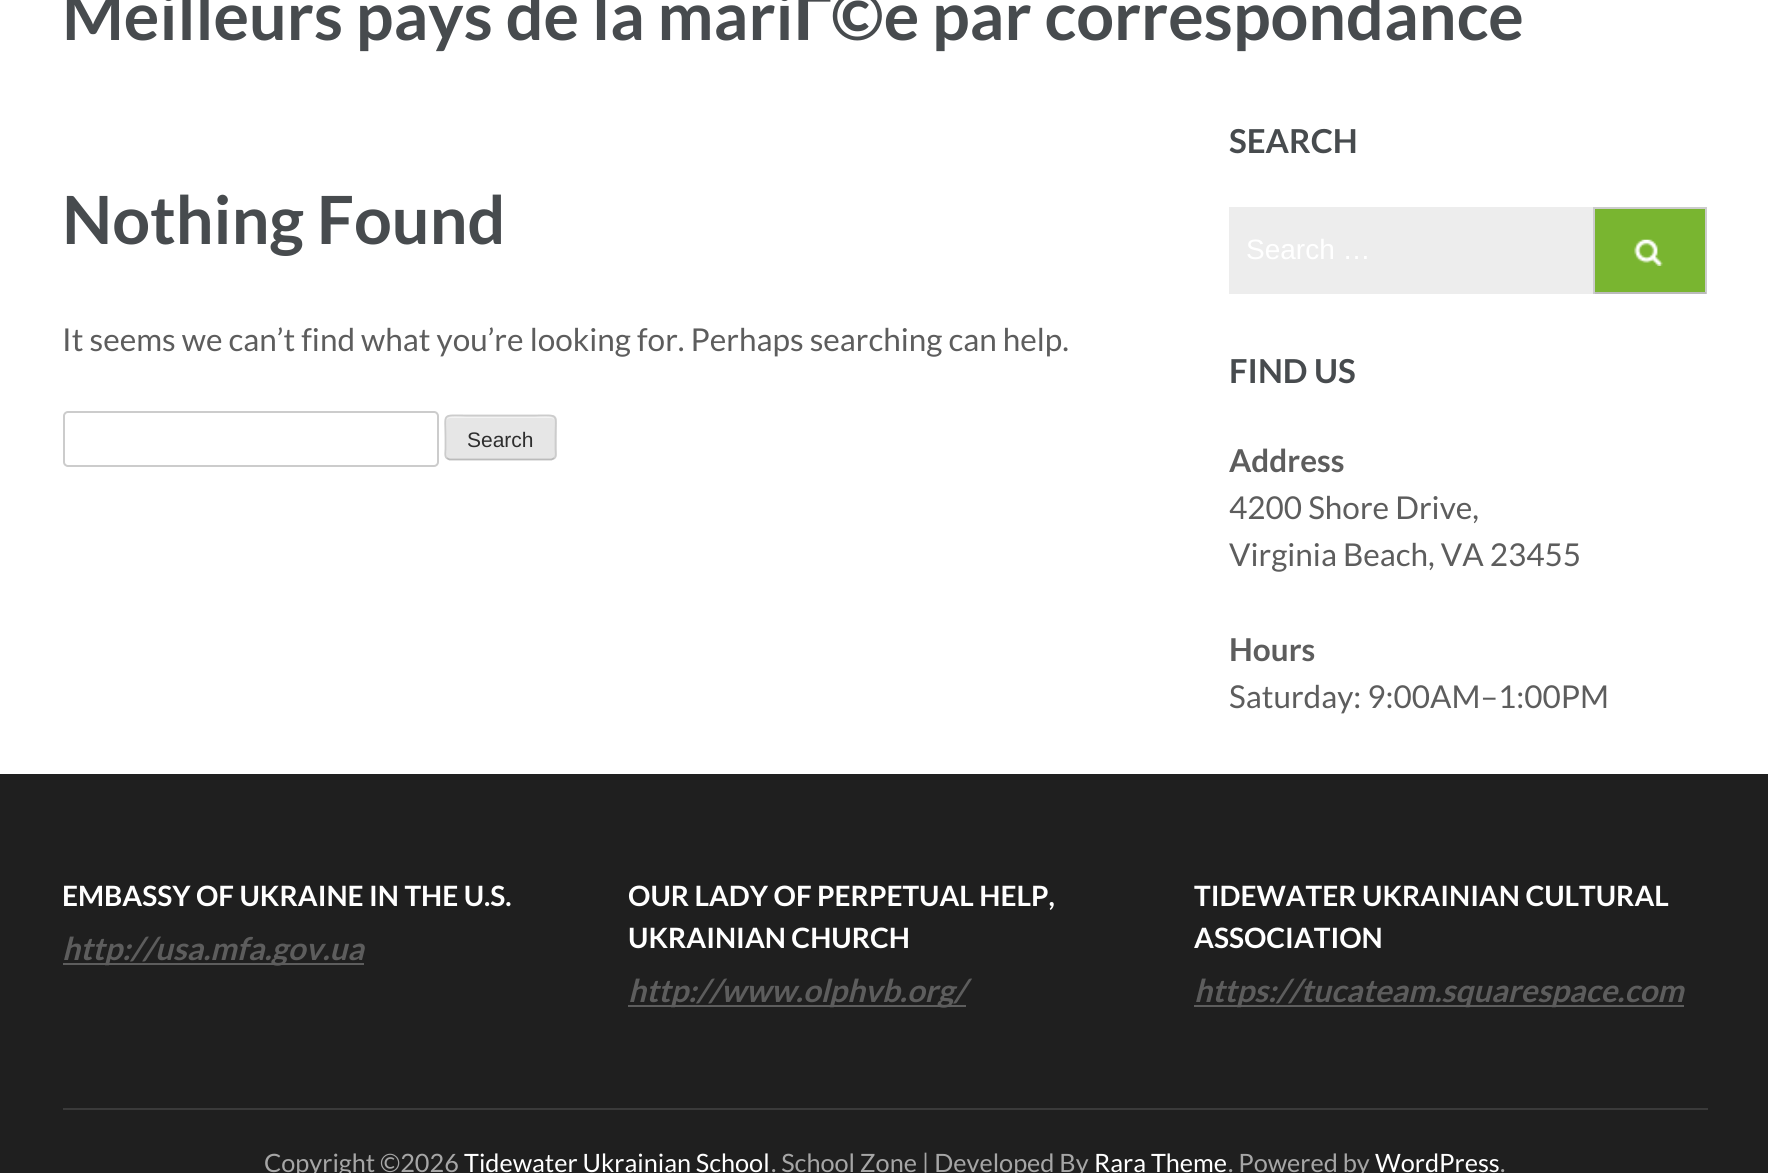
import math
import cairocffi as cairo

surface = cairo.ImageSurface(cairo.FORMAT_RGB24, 1768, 1173)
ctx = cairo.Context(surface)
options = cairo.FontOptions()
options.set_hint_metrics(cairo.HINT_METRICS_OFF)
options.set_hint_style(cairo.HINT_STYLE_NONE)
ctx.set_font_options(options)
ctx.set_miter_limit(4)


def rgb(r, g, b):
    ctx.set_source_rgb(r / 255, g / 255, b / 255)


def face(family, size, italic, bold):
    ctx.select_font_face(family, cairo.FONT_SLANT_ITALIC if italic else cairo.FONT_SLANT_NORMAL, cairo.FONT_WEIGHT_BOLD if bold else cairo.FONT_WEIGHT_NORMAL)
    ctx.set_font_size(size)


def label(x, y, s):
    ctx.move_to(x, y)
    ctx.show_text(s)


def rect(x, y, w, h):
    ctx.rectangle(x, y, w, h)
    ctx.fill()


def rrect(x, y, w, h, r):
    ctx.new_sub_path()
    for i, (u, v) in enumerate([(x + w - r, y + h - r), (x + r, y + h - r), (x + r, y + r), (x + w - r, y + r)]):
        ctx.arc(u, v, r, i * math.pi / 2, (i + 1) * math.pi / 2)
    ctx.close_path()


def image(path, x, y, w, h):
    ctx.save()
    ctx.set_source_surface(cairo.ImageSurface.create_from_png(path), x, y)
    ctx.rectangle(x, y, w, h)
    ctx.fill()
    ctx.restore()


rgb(255, 255, 255)
ctx.paint()
face('Lato', 66.5, 0, 1)
rgb(71, 75, 78)
label(62, 40, 'Meilleurs pays de la mari')
face('Liberation Sans', 66.5, 0, 1)
label(794, 40, 'Г')
face('Lato', 66.5, 0, 1)
label(831, 40, '©e par correspondance')
label(62, 244, 'Nothing Found')
face('Lato', 31.5, 0, 0)
rgb(93, 93, 93)
label(62, 351, 'It seems we can’t find what you’re looking for. Perhaps searching can help.')
rrect(64, 412, 374, 54, 4)
rgb(204, 204, 204)
ctx.stroke()
rgb(230, 230, 230)
rrect(445, 415, 112, 45, 5)
ctx.fill()
rgb(243, 243, 243)
ctx.new_path()
ctx.move_to(450, 418)
ctx.line_to(551, 418)
ctx.curve_to(553, 418, 555, 420, 555, 422)
ctx.curve_to(555, 413, 538, 417, 534, 417)
ctx.line_to(467, 417)
ctx.curve_to(463, 417, 446, 413, 446, 422)
ctx.curve_to(446, 420, 448, 418, 450, 418)
ctx.close_path()
ctx.fill()
ctx.new_path()
ctx.move_to(554.5, 458)
ctx.line_to(551.5, 459.5)
ctx.line_to(449.5, 459.5)
ctx.line_to(446.5, 458)
rgb(187, 187, 187)
ctx.set_line_width(1.8)
ctx.stroke()
ctx.new_path()
ctx.move_to(446.5, 458)
ctx.curve_to(444.5, 456, 445.5, 451.5, 445.5, 449)
ctx.line_to(445.5, 437.5)
ctx.curve_to(445.5, 412.5, 441, 415.5, 466.5, 415.5)
ctx.line_to(534.5, 415.5)
ctx.curve_to(560, 415.5, 555.5, 412.5, 555.5, 437.5)
ctx.line_to(555.5, 449)
ctx.curve_to(555.5, 451.5, 556.5, 456, 554.5, 458)
rgb(204, 204, 204)
ctx.stroke()
face('Liberation Sans', 21, 0, 0)
rgb(46, 46, 46)
label(467, 447, 'Search')
face('Lato', 33, 0, 1)
rgb(71, 75, 78)
label(1229, 153, 'SEARCH')
rgb(237, 237, 237)
rect(1229, 207, 364, 87)
face('Liberation Sans', 28, 0, 0)
rgb(255, 255, 255)
label(1246, 259, 'Search …')
rgb(121, 181, 48)
rect(1595, 209, 110, 83)
image('image0.png', 1634, 239, 29, 27)
rgb(204, 204, 204)
rect(1593, 207, 113, 2)
rect(1705, 207, 2, 87)
rgb(187, 187, 187)
rect(1593, 292, 113, 2)
rgb(204, 204, 204)
rect(1593, 207, 2, 87)
face('Lato', 33, 0, 1)
rgb(71, 75, 78)
label(1229, 383, 'FIND US')
face('Lato', 31.5, 0, 1)
rgb(93, 93, 93)
label(1229, 472, 'Address')
face('Lato', 31.5, 0, 0)
label(1229, 519, '4200 Shore Drive,')
label(1229, 566, 'Virginia Beach, VA 23455')
face('Lato', 31.5, 0, 1)
label(1229, 661, 'Hours')
face('Lato', 31.5, 0, 0)
label(1229, 708, 'Saturday: 9:00AM–1:00PM')
rgb(31, 31, 31)
rect(0, 774, 1768, 399)
rgb(58, 58, 58)
rect(63, 1108, 1645, 2)
face('Lato', 28, 0, 1)
rgb(255, 255, 255)
label(62, 906, 'EMBASSY OF UKRAINE IN THE U.S.')
rgb(93, 93, 93)
rect(63, 963, 301, 2)
face('Lato', 31.5, 1, 1)
label(62, 960, 'http://usa.mfa.gov.ua')
face('Lato', 28, 0, 1)
rgb(255, 255, 255)
label(628, 906, 'OUR LADY OF PERPETUAL HELP,')
label(628, 948, 'UKRAINIAN CHURCH')
rgb(93, 93, 93)
rect(628, 1005, 338, 2)
face('Lato', 31.5, 1, 1)
label(628, 1002, 'http://www.olphvb.org/')
face('Lato', 28, 0, 1)
rgb(255, 255, 255)
label(1194, 906, 'TIDEWATER UKRAINIAN CULTURAL')
label(1194, 948, 'ASSOCIATION')
rgb(93, 93, 93)
rect(1194, 1005, 490, 2)
face('Lato', 31.5, 1, 1)
label(1194, 1002, 'https://tucateam.squarespace.com')
face('Lato', 25.25, 0, 0)
rgb(166, 166, 166)
label(264, 1172, 'Copyright ©2026')
rgb(255, 255, 255)
label(464, 1172, 'Tidewater Ukrainian School')
rgb(166, 166, 166)
label(771, 1172, '. School Zone | Developed By')
rgb(255, 255, 255)
label(1094, 1172, 'Rara Theme')
rgb(166, 166, 166)
label(1228, 1172, '. Powered by')
rgb(255, 255, 255)
label(1375, 1172, 'WordPress')
rgb(166, 166, 166)
label(1500, 1172, '.')
surface.write_to_png('render.png')
